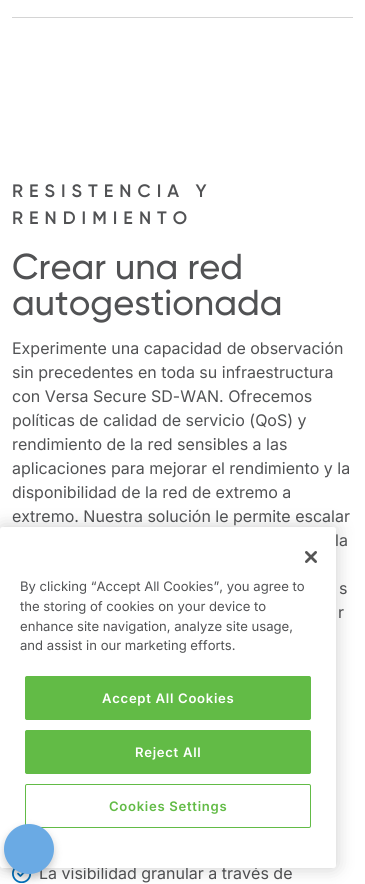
import math
import cairocffi as cairo

surface = cairo.ImageSurface(cairo.FORMAT_RGB24, 365, 884)
ctx = cairo.Context(surface)
options = cairo.FontOptions()
options.set_hint_metrics(cairo.HINT_METRICS_OFF)
options.set_hint_style(cairo.HINT_STYLE_NONE)
ctx.set_font_options(options)
ctx.set_miter_limit(4)


def rgb(r, g, b):
    ctx.set_source_rgb(r / 255, g / 255, b / 255)


def face(family, size, italic, bold):
    ctx.select_font_face(family, cairo.FONT_SLANT_ITALIC if italic else cairo.FONT_SLANT_NORMAL, cairo.FONT_WEIGHT_BOLD if bold else cairo.FONT_WEIGHT_NORMAL)
    ctx.set_font_size(size)


def label(x, y, s):
    ctx.move_to(x, y)
    ctx.show_text(s)


def tracked(x, y, s, letter, word):
    ctx.move_to(x, y)
    for ch in s:
        ctx.show_text(ch)
        ctx.rel_move_to(letter + word * (ch == ' '), 0)


def rect(x, y, w, h):
    ctx.rectangle(x, y, w, h)
    ctx.fill()


def rrect(x, y, w, h, r):
    ctx.new_sub_path()
    for i, (u, v) in enumerate([(x + w - r, y + h - r), (x + r, y + h - r), (x + r, y + r), (x + w - r, y + r)]):
        ctx.arc(u, v, r, i * math.pi / 2, (i + 1) * math.pi / 2)
    ctx.close_path()


def soft_shadow(x, y, w, h, r, blur, alpha):
    ctx.push_group_with_content(cairo.CONTENT_ALPHA)
    ctx.set_operator(cairo.OPERATOR_SOURCE)
    for i in range(15, -16, -2):
        e = blur * i / 6
        if min(w, h) + 2 * e > 0:
            ctx.set_source_rgba(0, 0, 0, alpha * math.erfc((i - 1) / 8.5) / 2)
            rrect(x - e, y - e, w + 2 * e, h + 2 * e, max(0, min(r + e + blur * .6, min(w, h) / 2 + e)))
            ctx.fill()
    ctx.mask(ctx.pop_group())


def image(path, x, y, w, h):
    ctx.save()
    ctx.set_source_surface(cairo.ImageSurface.create_from_png(path), x, y)
    ctx.rectangle(x, y, w, h)
    ctx.fill()
    ctx.restore()


rgb(255, 255, 255)
ctx.paint()
rgb(212, 212, 212)
rect(12, 17, 341, 1)
face('Gilroy SemiBold', 18, 0, 0)
rgb(81, 82, 84)
tracked(12, 197, 'RESISTENCIA Y', 6, 0)
tracked(12, 224, 'RENDIMIENTO', 6, 0)
face('Gilroy Medium', 36, 0, 0)
label(12, 279, 'Crear una red')
label(12, 315, 'autogestionada')
face('Inter', 16, 0, 0)
label(12, 354, 'Experimente una capacidad de observación')
label(12, 378, 'sin precedentes en toda su infraestructura')
label(12, 402, 'con Versa Secure SD-WAN. Ofrecemos')
label(12, 426, 'políticas de calidad de servicio (QoS) y')
label(12, 450, 'rendimiento de la red sensibles a las')
label(12, 474, 'aplicaciones para mejorar el rendimiento y la')
label(12, 498, 'disponibilidad de la red de extremo a')
label(12, 522, 'extremo. Nuestra solución le permite escalar')
label(335, 546, 'la')
label(339, 594, 's')
label(338, 618, 'r')
image('image0.png', 12, 868, 19, 15)
label(39, 879, 'La visibilidad granular a través de')
rgb(0, 0, 0)
soft_shadow(0, 527, 336, 341, 2.5, 9, 0.2)
rgb(255, 255, 255)
rrect(0, 527, 336, 341, 2.5)
ctx.fill()
image('image1.png', 305, 551, 12, 12)
face('Inter', 13.1, 0, 0)
rgb(81, 82, 84)
label(20, 591, 'By clicking “Accept All Cookies”, you agree to')
label(20, 611, 'the storing of cookies on your device to')
label(20, 631, 'enhance site navigation, analyze site usage,')
label(20, 650, 'and assist in our marketing efforts.')
rgb(98, 187, 70)
rrect(25.5, 676.5, 285, 43, 1.5)
ctx.fill_preserve()
ctx.set_line_width(1)
ctx.stroke()
face('Inter SemiBold', 13.1, 0, 0)
rgb(255, 255, 255)
tracked(102, 703, 'Accept All Cookies', 0.7, 0)
rgb(98, 187, 70)
rrect(25.5, 730.5, 285, 43, 1.5)
ctx.fill_preserve()
ctx.stroke()
rgb(255, 255, 255)
tracked(135, 757, 'Reject All', 0.7, 0)
rrect(25.5, 784.5, 285, 43, 1.5)
rgb(98, 187, 70)
ctx.stroke()
tracked(109, 811, 'Cookies Settings', 0.7, 0)
rgb(0, 0, 0)
soft_shadow(4, 828, 50, 50, 25, 4, 0.2)
rgb(106, 170, 228)
ctx.arc(29, 849, 25, 0, 2 * math.pi)
ctx.fill()
surface.write_to_png('render.png')
